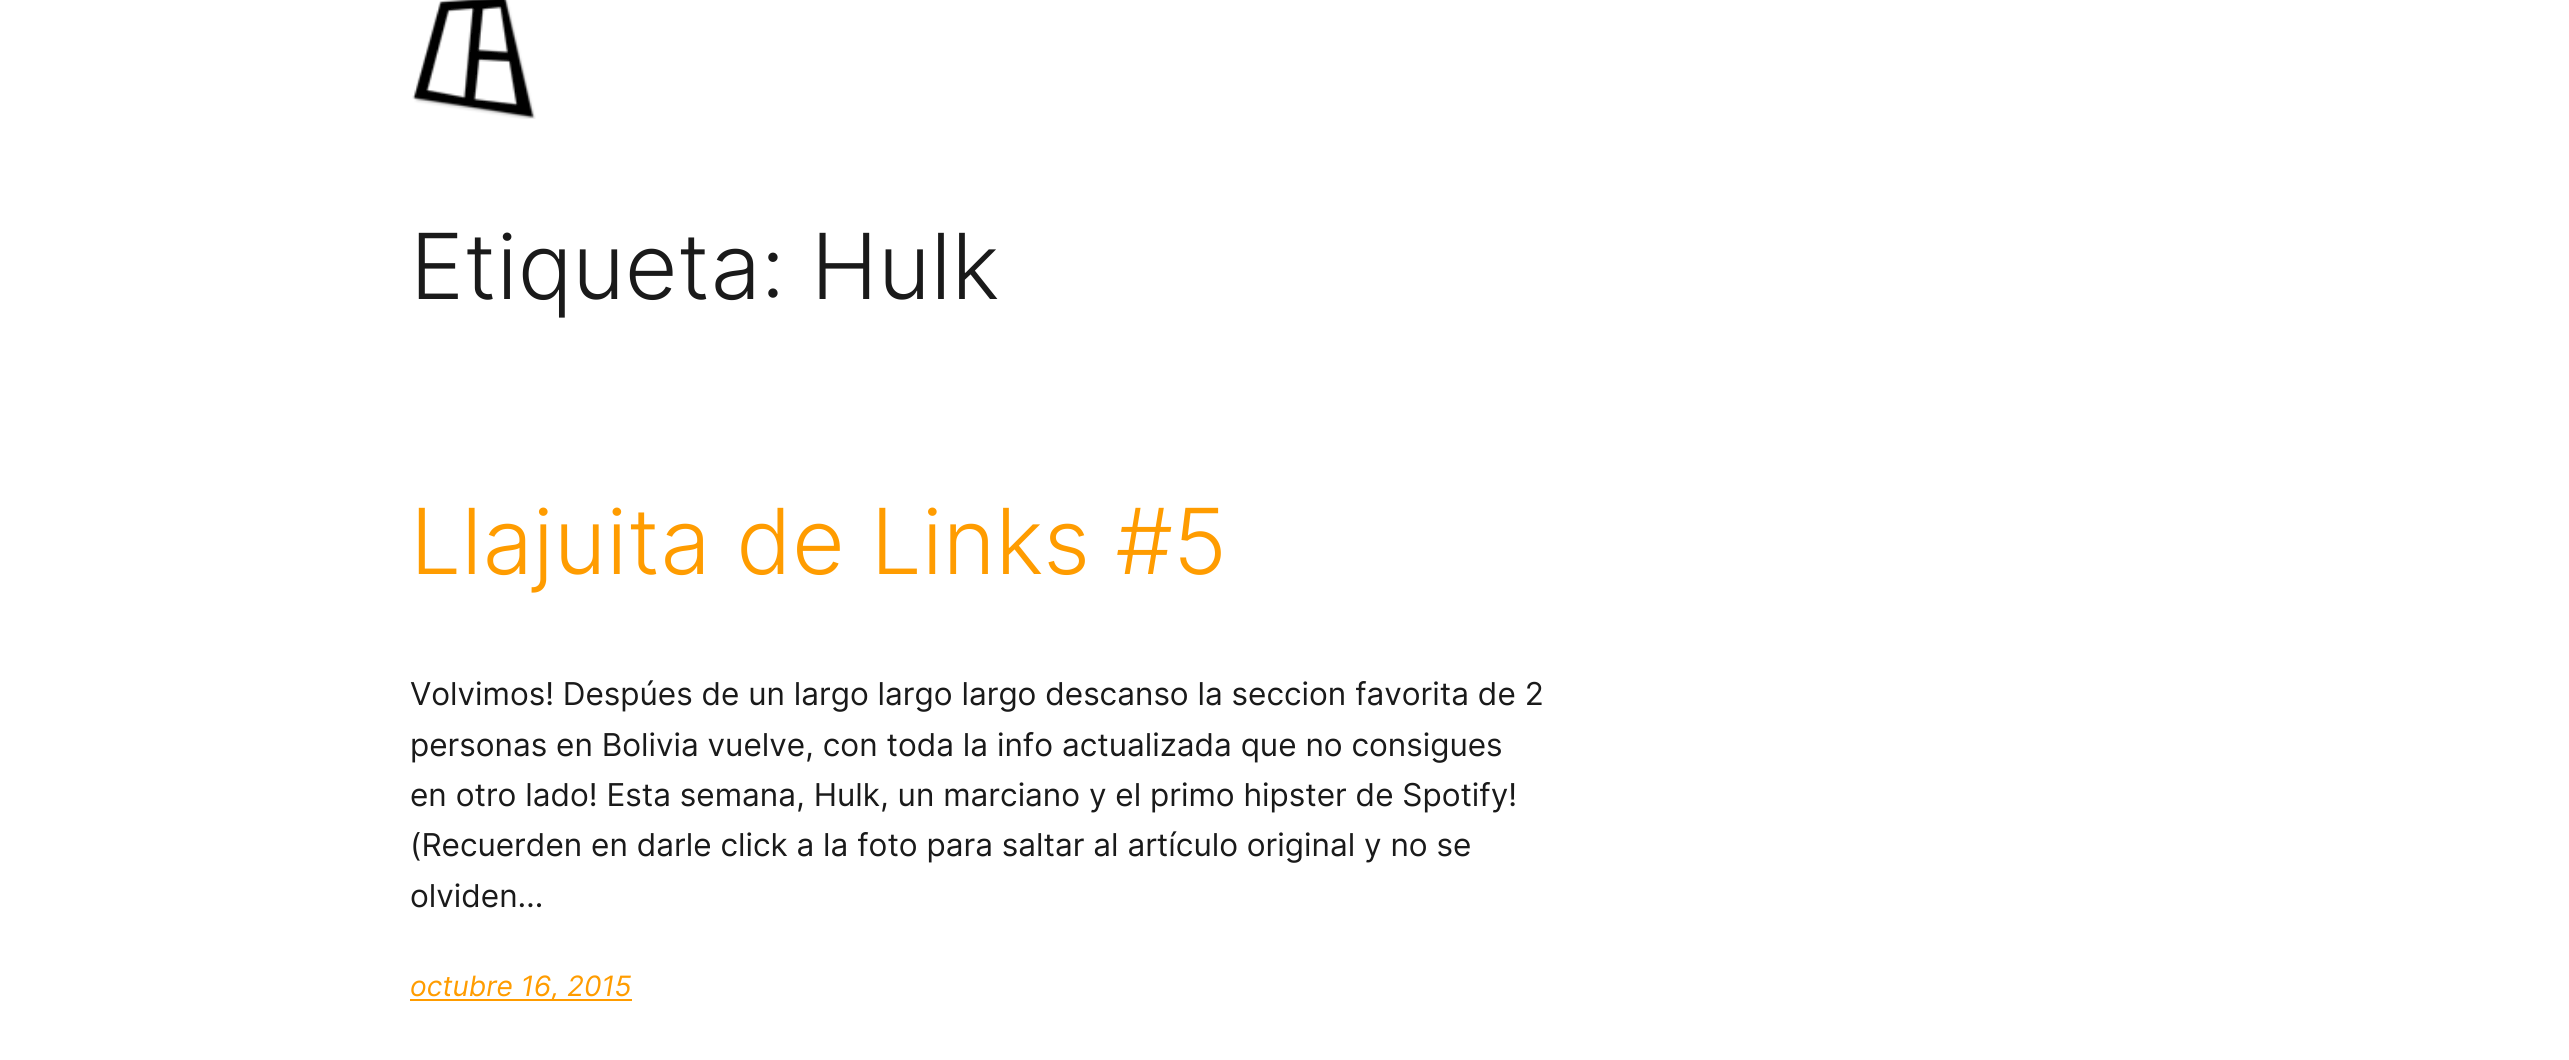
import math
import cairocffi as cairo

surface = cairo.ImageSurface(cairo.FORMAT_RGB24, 2569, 1060)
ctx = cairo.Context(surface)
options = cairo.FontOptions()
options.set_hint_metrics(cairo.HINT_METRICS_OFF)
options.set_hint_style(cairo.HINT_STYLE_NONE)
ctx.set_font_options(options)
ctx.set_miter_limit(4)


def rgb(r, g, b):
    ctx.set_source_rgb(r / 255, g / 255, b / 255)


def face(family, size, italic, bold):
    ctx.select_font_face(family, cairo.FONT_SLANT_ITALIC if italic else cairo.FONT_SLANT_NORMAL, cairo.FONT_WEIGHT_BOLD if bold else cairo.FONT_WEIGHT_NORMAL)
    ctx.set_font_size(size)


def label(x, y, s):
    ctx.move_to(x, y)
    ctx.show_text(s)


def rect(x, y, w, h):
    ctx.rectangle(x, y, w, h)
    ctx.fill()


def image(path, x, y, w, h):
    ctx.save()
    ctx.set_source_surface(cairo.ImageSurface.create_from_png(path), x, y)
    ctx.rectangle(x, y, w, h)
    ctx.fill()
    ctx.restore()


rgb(255, 255, 255)
ctx.paint()
image('image0.png', 412, 0, 124, 119)
face('Inter Light', 91, 0, 0)
rgb(26, 26, 26)
label(410, 299, 'Etiqueta: Hulk')
rgb(255, 156, 0)
label(410, 574, 'Llajuita de Links #5')
face('Inter', 31.5, 0, 0)
rgb(26, 26, 26)
label(410, 705, 'Volvimos! Despúes de un largo largo largo descanso la seccion favorita de 2')
label(410, 756, 'personas en Bolivia vuelve, con toda la info actualizada que no consigues')
label(410, 806, 'en otro lado! Esta semana, Hulk, un marciano y el primo hipster de Spotify!')
label(410, 856, '(Recuerden en darle click a la foto para saltar al artículo original y no se')
label(410, 907, 'olviden…')
rgb(255, 156, 0)
rect(410, 999, 222, 2)
face('Inter', 28, 1, 0)
label(410, 996, 'octubre 16, 2015')
surface.write_to_png('render.png')
